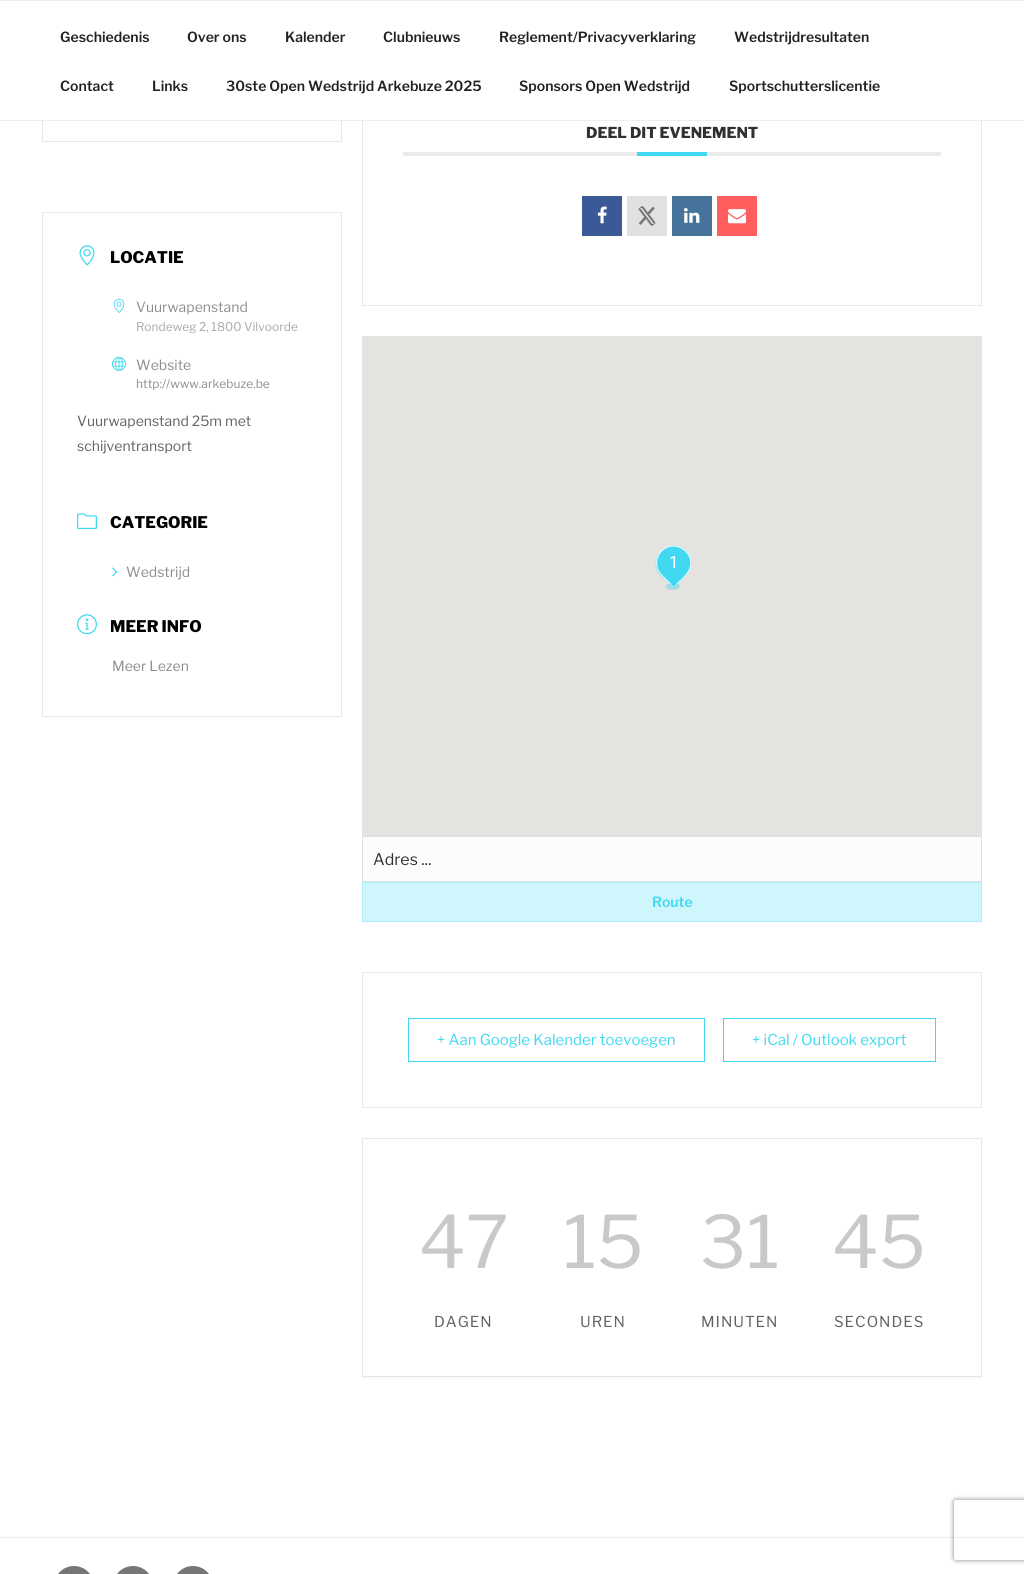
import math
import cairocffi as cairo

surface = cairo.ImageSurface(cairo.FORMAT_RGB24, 1024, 1574)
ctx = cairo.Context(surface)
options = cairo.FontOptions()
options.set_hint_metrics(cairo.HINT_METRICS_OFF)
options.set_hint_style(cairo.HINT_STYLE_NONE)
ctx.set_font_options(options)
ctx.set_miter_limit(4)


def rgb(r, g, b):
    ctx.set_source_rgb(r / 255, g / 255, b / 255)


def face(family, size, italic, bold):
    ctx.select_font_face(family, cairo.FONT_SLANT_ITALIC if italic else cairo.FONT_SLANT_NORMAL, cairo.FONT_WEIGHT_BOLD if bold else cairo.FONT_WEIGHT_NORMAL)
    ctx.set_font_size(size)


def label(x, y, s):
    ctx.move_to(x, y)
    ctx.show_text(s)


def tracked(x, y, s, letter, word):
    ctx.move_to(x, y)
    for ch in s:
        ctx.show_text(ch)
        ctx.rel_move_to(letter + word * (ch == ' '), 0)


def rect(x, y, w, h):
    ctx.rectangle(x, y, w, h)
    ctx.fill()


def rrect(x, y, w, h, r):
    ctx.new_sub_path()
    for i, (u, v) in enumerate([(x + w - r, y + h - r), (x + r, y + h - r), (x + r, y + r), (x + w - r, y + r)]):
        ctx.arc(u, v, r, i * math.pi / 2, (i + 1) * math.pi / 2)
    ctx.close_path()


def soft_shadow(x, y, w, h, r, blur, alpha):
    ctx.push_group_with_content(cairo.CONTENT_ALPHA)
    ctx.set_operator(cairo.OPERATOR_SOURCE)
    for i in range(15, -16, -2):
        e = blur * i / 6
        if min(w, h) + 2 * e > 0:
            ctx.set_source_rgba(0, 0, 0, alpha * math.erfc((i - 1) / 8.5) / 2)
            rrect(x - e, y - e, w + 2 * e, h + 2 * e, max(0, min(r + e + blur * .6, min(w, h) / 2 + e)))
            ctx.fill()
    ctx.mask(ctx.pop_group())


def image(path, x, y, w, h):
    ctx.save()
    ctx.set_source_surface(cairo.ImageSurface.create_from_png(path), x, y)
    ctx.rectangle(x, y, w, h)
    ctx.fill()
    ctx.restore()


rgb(255, 255, 255)
ctx.paint()
ctx.rectangle(42.5, -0.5, 299, 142)
rgb(230, 230, 230)
ctx.set_line_width(1)
ctx.stroke()
ctx.rectangle(362.5, 83.5, 619, 222)
rgb(230, 231, 232)
ctx.stroke()
rgb(255, 255, 255)
rect(42, 1, 940, 119)
rgb(238, 238, 238)
rect(0, 0, 1024, 1)
rect(0, 120, 1024, 1)
face('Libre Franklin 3 Thin', 14, 0, 0)
rgb(34, 34, 34)
label(60, 42, 'Geschiedenis')
label(187, 42, 'Over ons')
label(285, 42, 'Kalender')
label(383, 42, 'Clubnieuws')
label(499, 42, 'Reglement/Privacyverklaring')
label(734, 42, 'Wedstrijdresultaten')
label(60, 91, 'Contact')
label(152, 91, 'Links')
label(226, 91, '30ste Open Wedstrijd Arkebuze 2025')
label(519, 91, 'Sponsors Open Wedstrijd')
label(729, 91, 'Sportschutterslicentie')
ctx.rectangle(42.5, 212.5, 299, 504)
rgb(230, 230, 230)
ctx.stroke()
image('image0.png', 79, 245, 16, 21)
face('Libre Franklin Thin', 16, 0, 0)
rgb(0, 0, 0)
label(110, 263, 'LOCATIE')
image('image1.png', 113, 298, 12, 15)
face('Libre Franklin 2 Thin', 14, 0, 0)
rgb(141, 141, 141)
label(136, 312, 'Vuurwapenstand')
face('Libre Franklin 2 Thin', 12, 0, 0)
rgb(169, 169, 169)
label(136, 331, 'Rondeweg 2, 1800 Vilvoorde')
image('image2.png', 112, 356, 14, 15)
face('Libre Franklin 2 Thin', 14, 0, 0)
rgb(141, 141, 141)
label(136, 370, 'Website')
face('Libre Franklin 2 Thin', 12, 0, 0)
label(136, 388, 'http://www.arkebuze.be')
face('Libre Franklin 2 Thin', 14, 0, 0)
rgb(97, 97, 97)
label(77, 426, 'Vuurwapenstand 25m met')
label(77, 451, 'schijventransport')
image('image3.png', 77, 513, 20, 17)
face('Libre Franklin Thin', 16, 0, 0)
rgb(0, 0, 0)
label(110, 528, 'CATEGORIE')
image('image4.png', 112, 567, 6, 10)
face('Libre Franklin 2 Thin', 14, 0, 0)
rgb(141, 141, 141)
label(126, 577, 'Wedstrijd')
image('image5.png', 77, 614, 20, 21)
face('Libre Franklin Thin', 16, 0, 0)
rgb(0, 0, 0)
label(110, 632, 'MEER INFO')
face('Libre Franklin 2 Thin', 14, 0, 0)
rgb(141, 141, 141)
label(112, 671, 'Meer Lezen')
rgb(235, 235, 235)
rect(403, 152, 538, 4)
face('Libre Franklin Thin', 15, 0, 0)
rgb(49, 49, 49)
label(586, 138, 'DEEL DIT EVENEMENT')
rgb(64, 217, 241)
rect(637, 152, 70, 4)
rgb(59, 89, 150)
rect(582, 196, 40, 40)
image('image6.png', 597, 206, 10, 18)
rgb(225, 225, 225)
rect(627, 196, 40, 40)
image('image7.png', 638, 206, 18, 20)
rgb(69, 115, 153)
rect(672, 196, 40, 40)
image('image8.png', 684, 208, 16, 15)
rgb(255, 93, 94)
rect(717, 196, 40, 40)
image('image9.png', 728, 209, 18, 15)
rgb(229, 227, 223)
rect(362, 336, 620, 500)
rgb(64, 217, 241)
ctx.new_path()
ctx.move_to(661, 551)
ctx.curve_to(675, 537, 697, 552, 690, 570)
ctx.curve_to(687, 576, 679, 583, 674, 588)
ctx.line_to(661, 576)
ctx.curve_to(654, 569, 654, 558, 661, 551)
ctx.close_path()
ctx.fill()
ctx.new_path()
ctx.move_to(661.5, 551)
ctx.curve_to(674.5, 538, 696.5, 552.5, 689.5, 569.5)
ctx.curve_to(686.5, 576, 678.5, 582.5, 673.5, 587)
ctx.line_to(661.5, 575)
ctx.curve_to(655, 568.5, 655, 558, 661.5, 551)
ctx.close_path()
rgb(255, 255, 255)
ctx.stroke()
face('Roboto', 17, 0, 0)
label(669, 568, '1')
ctx.set_source_rgba(0.004, 0.792, 0.914, 0.28)
ctx.new_path()
ctx.move_to(673, 583)
ctx.curve_to(677, 583, 680, 584.5, 680, 586.5)
ctx.curve_to(680, 588.5, 677, 590, 673, 590)
ctx.curve_to(669, 590, 666, 588.5, 666, 586.5)
ctx.curve_to(666, 584.5, 669, 583, 673, 583)
ctx.close_path()
ctx.fill()
rgb(252, 252, 252)
ctx.rectangle(362.5, 836.5, 619, 45)
ctx.fill_preserve()
rgb(224, 224, 224)
ctx.stroke()
face('Libre Franklin 2 Thin', 16, 0, 0)
rgb(49, 49, 49)
label(373, 865, 'Adres ...')
rgb(252, 252, 252)
rect(362, 922, 620, 1)
rgb(207, 246, 252)
ctx.rectangle(362.5, 882.5, 619, 39)
ctx.fill_preserve()
rgb(171, 239, 249)
ctx.stroke()
face('Libre Franklin 3 Thin', 14, 0, 0)
rgb(64, 217, 241)
label(652, 907, 'Route')
ctx.rectangle(362.5, 972.5, 619, 135)
rgb(230, 231, 232)
ctx.stroke()
ctx.rectangle(408.5, 1018.5, 296, 43)
rgb(64, 217, 241)
ctx.stroke()
face('Libre Franklin 2 Thin', 15, 0, 0)
label(437, 1045, '+ Aan Google Kalender toevoegen')
ctx.rectangle(723.5, 1018.5, 212, 43)
ctx.stroke()
label(752, 1045, '+ iCal / Outlook export')
rgb(251, 251, 251)
rect(362, 1377, 620, 2)
ctx.rectangle(362.5, 1138.5, 619, 238)
rgb(230, 230, 230)
ctx.stroke()
face('Libre Franklin 2 Thin', 72, 0, 0)
rgb(201, 201, 201)
label(419, 1268, '47')
face('Libre Franklin 2 Thin', 15, 0, 0)
rgb(97, 97, 97)
tracked(434, 1327, 'DAGEN', 1, 0)
face('Libre Franklin 2 Thin', 72, 0, 0)
rgb(201, 201, 201)
label(563, 1268, '15')
face('Libre Franklin 2 Thin', 15, 0, 0)
rgb(97, 97, 97)
tracked(580, 1327, 'UREN', 1, 0)
face('Libre Franklin 2 Thin', 72, 0, 0)
rgb(201, 201, 201)
label(700, 1268, '31')
face('Libre Franklin 2 Thin', 15, 0, 0)
rgb(97, 97, 97)
tracked(701, 1327, 'MINUTEN', 1, 0)
face('Libre Franklin 2 Thin', 72, 0, 0)
rgb(201, 201, 201)
label(832, 1268, '45')
face('Libre Franklin 2 Thin', 15, 0, 0)
rgb(97, 97, 97)
tracked(834, 1327, 'SECONDES', 1, 0)
rgb(238, 238, 238)
rect(0, 1537, 1024, 1)
rgb(118, 118, 118)
rrect(54, 1566, 40, 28, 20)
ctx.fill()
rrect(113, 1566, 40, 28, 20)
ctx.fill()
rrect(173, 1566, 40, 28, 20)
ctx.fill()
ctx.save()
ctx.set_fill_rule(cairo.FILL_RULE_EVEN_ODD)
ctx.new_path()
ctx.move_to(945, 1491)
ctx.line_to(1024, 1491)
ctx.line_to(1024, 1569)
ctx.line_to(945, 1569)
ctx.close_path()
ctx.move_to(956, 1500)
ctx.line_to(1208, 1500)
ctx.curve_to(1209, 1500, 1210, 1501, 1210, 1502)
ctx.line_to(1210, 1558)
ctx.curve_to(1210, 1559, 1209, 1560, 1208, 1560)
ctx.line_to(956, 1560)
ctx.curve_to(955, 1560, 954, 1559, 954, 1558)
ctx.line_to(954, 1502)
ctx.curve_to(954, 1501, 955, 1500, 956, 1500)
ctx.close_path()
ctx.clip()
rgb(128, 128, 128)
soft_shadow(954, 1500, 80, 60, 2, 2.5, 1)
ctx.restore()
surface.write_to_png('render.png')
